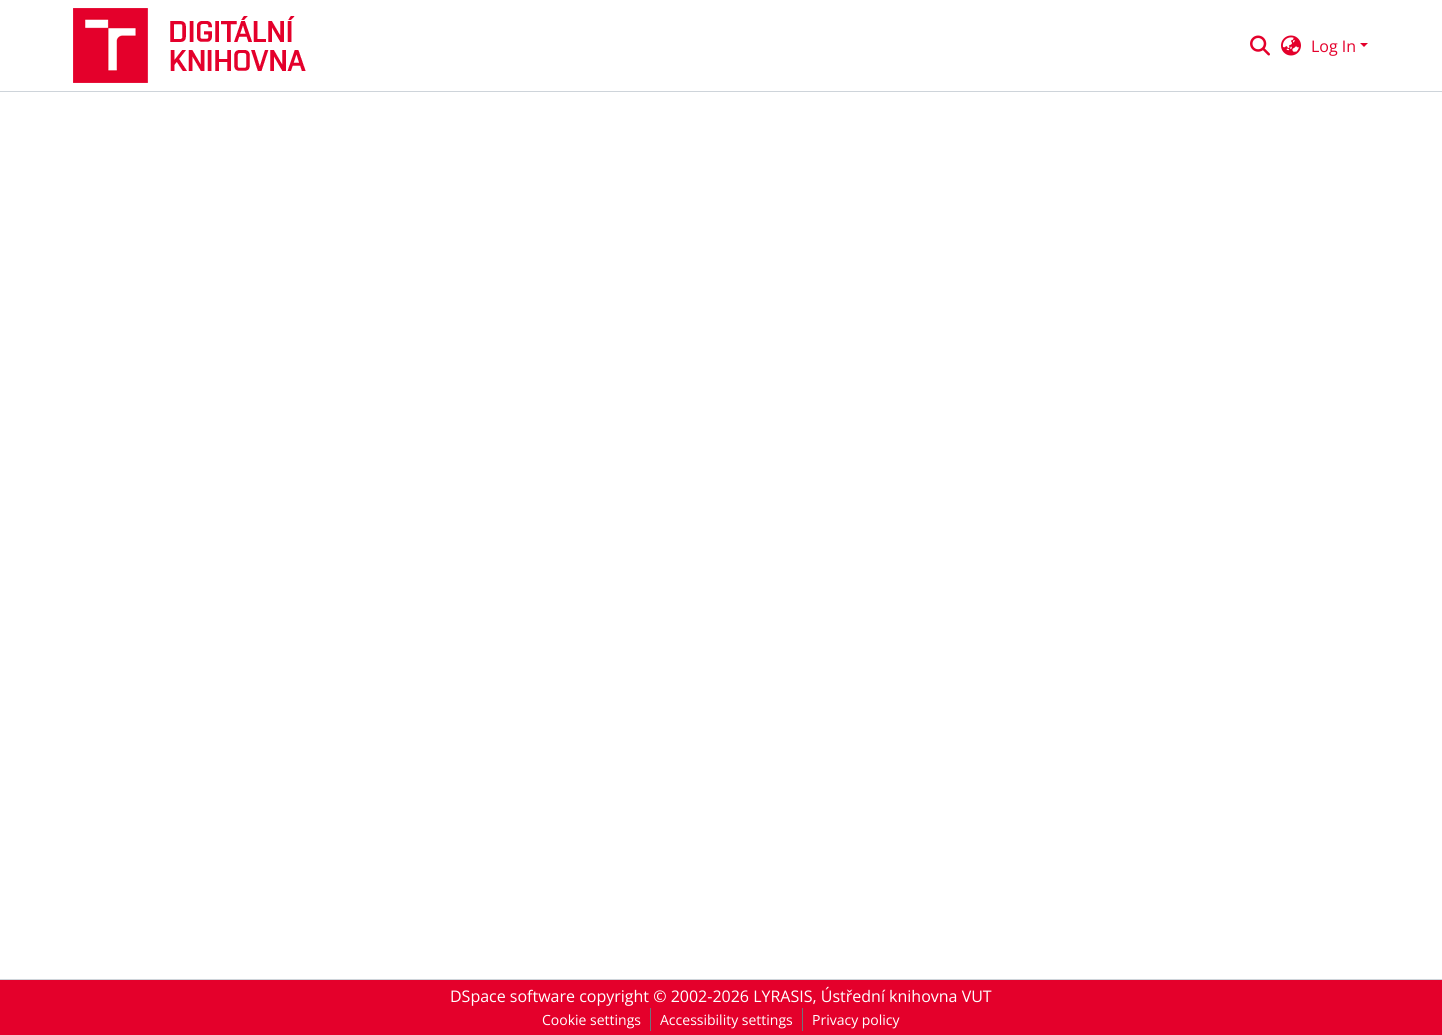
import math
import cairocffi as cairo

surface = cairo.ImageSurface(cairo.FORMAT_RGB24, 1442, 1035)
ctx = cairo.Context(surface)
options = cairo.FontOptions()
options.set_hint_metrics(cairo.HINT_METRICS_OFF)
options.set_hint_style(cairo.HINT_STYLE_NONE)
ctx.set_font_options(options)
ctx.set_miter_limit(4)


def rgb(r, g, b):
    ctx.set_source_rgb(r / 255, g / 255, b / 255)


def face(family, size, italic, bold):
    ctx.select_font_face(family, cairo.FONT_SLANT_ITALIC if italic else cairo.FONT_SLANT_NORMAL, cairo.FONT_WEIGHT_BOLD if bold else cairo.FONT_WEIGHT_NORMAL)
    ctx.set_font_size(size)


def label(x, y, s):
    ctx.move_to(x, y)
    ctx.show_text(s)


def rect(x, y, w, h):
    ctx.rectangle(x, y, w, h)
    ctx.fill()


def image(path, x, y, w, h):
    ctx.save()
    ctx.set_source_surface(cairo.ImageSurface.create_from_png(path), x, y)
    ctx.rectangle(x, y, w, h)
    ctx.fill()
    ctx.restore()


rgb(255, 255, 255)
ctx.paint()
rgb(206, 212, 218)
rect(0, 91, 1442, 1)
image('image0.png', 73, 8, 233, 75)
image('image1.png', 1250, 35, 20, 21)
image('image2.png', 1281, 35, 20, 21)
face('Open Sans', 16, 0, 0)
rgb(228, 0, 43)
label(1311, 52, 'Log In')
ctx.new_path()
ctx.move_to(1360, 43)
ctx.line_to(1368, 43)
ctx.line_to(1364, 47)
ctx.close_path()
ctx.fill()
rect(0, 980, 1442, 55)
rgb(206, 212, 218)
rect(0, 979, 1442, 1)
rgb(255, 255, 255)
label(450, 1002, 'DSpace software copyright © 2002-2026 LYRASIS, Ústřední knihovna VUT')
face('Open Sans', 14, 0, 0)
label(542, 1025, 'Cookie settings')
rgb(108, 117, 125)
rect(650, 1008, 1, 23)
rgb(255, 255, 255)
label(660, 1025, 'Accessibility settings')
rgb(108, 117, 125)
rect(802, 1008, 1, 23)
rgb(255, 255, 255)
label(812, 1025, 'Privacy policy')
surface.write_to_png('render.png')
